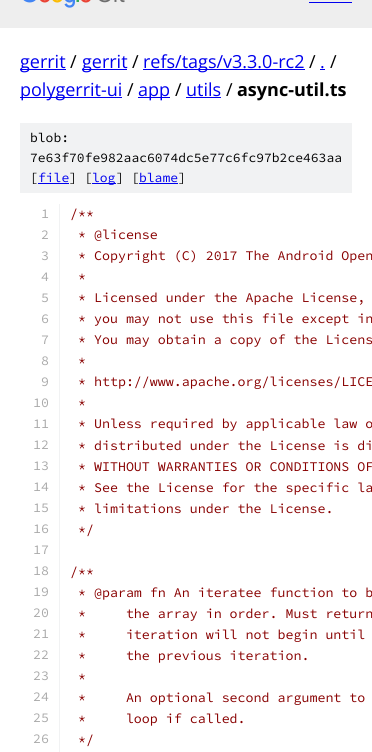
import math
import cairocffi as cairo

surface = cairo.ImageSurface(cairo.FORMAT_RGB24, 372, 752)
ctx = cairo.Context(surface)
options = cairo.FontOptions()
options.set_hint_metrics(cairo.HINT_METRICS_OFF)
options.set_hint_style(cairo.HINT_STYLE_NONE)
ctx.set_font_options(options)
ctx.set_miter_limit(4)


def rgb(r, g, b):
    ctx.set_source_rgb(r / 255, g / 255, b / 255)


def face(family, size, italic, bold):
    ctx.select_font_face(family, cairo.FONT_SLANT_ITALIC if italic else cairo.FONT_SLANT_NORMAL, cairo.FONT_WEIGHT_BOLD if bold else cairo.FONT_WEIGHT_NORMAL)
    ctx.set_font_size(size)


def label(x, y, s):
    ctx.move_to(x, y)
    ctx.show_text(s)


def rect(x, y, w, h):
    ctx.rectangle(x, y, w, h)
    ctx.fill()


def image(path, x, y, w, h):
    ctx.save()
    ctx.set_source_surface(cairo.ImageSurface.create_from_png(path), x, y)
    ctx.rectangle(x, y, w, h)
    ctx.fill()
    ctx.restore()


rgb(255, 255, 255)
ctx.paint()
rgb(238, 238, 238)
rect(0, 0, 372, 28)
image('image0.png', 23, 0, 102, 8)
rgb(0, 0, 238)
rect(309, 2, 43, 1)
rect(20, 69, 46, 1)
face('Open Sans', 18, 0, 0)
label(20, 68, 'gerrit')
rgb(0, 0, 0)
label(70, 68, '/')
rgb(0, 0, 238)
rect(82, 69, 45, 1)
label(82, 68, 'gerrit')
rgb(0, 0, 0)
label(132, 68, '/')
rgb(0, 0, 238)
rect(143, 69, 162, 1)
label(143, 68, 'refs/tags/v3.3.0-rc2')
rgb(0, 0, 0)
label(309, 68, '/')
rgb(0, 0, 238)
label(320, 68, '.')
rect(320, 69, 5, 1)
rgb(0, 0, 0)
label(330, 68, '/')
rgb(0, 0, 238)
rect(20, 97, 102, 1)
label(20, 96, 'polygerrit-ui')
rgb(0, 0, 0)
label(127, 96, '/')
rgb(0, 0, 238)
rect(138, 97, 32, 1)
label(138, 96, 'app')
rgb(0, 0, 0)
label(175, 96, '/')
rgb(0, 0, 238)
label(186, 96, 'utils')
rect(186, 97, 35, 1)
rgb(0, 0, 0)
label(226, 96, '/')
face('Open Sans', 18, 0, 1)
label(237, 96, 'async-util.ts')
rgb(241, 242, 243)
rect(20, 123, 332, 70)
face('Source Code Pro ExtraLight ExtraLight', 13, 0, 0)
rgb(0, 0, 0)
label(30, 142, 'blob:')
label(30, 162, '7e63f70fe982aac6074dc5e77c6fc97b2ce463aa')
label(30, 182, '[')
rgb(0, 0, 238)
label(38, 182, 'file')
rect(38, 183, 31, 1)
rgb(0, 0, 0)
label(69, 182, '] [')
rgb(0, 0, 238)
rect(92, 183, 24, 1)
label(92, 182, 'log')
rgb(0, 0, 0)
label(116, 182, '] [')
rgb(0, 0, 238)
label(139, 182, 'blame')
rect(139, 183, 39, 1)
rgb(0, 0, 0)
label(178, 182, ']')
rgb(241, 242, 243)
rect(59, 204, 1, 548)
face('Source Code Pro ExtraLight ExtraLight', 13.3, 0, 0)
rgb(170, 170, 170)
label(41, 218, '1')
rgb(136, 0, 0)
label(70, 218, '/**')
rgb(170, 170, 170)
label(41, 239, '2')
rgb(136, 0, 0)
label(78, 239, '* @license')
rgb(170, 170, 170)
label(41, 260, '3')
rgb(136, 0, 0)
label(78, 260, '* Copyright (C) 2017 The Android Open')
rgb(170, 170, 170)
label(41, 281, '4')
rgb(136, 0, 0)
label(78, 281, '*')
rgb(170, 170, 170)
label(41, 302, '5')
rgb(136, 0, 0)
label(78, 302, '* Licensed under the Apache License,')
rgb(170, 170, 170)
label(41, 323, '6')
rgb(136, 0, 0)
label(78, 323, '* you may not use this file except in')
rgb(170, 170, 170)
label(41, 344, '7')
rgb(136, 0, 0)
label(78, 344, '* You may obtain a copy of the Licens')
rgb(170, 170, 170)
label(41, 365, '8')
rgb(136, 0, 0)
label(78, 365, '*')
rgb(170, 170, 170)
label(41, 386, '9')
rgb(136, 0, 0)
label(78, 386, '* http://www.apache.org/licenses/LICE')
rgb(170, 170, 170)
label(33, 407, '10')
rgb(136, 0, 0)
label(78, 407, '*')
rgb(170, 170, 170)
label(33, 428, '11')
rgb(136, 0, 0)
label(78, 428, '* Unless required by applicable law o')
rgb(170, 170, 170)
label(33, 449, '12')
rgb(136, 0, 0)
label(78, 450, '* distributed under the License is di')
rgb(170, 170, 170)
label(33, 470, '13')
rgb(136, 0, 0)
label(78, 471, '* WITHOUT WARRANTIES OR CONDITIONS OF')
rgb(170, 170, 170)
label(33, 491, '14')
rgb(136, 0, 0)
label(78, 492, '* See the License for the specific la')
rgb(170, 170, 170)
label(33, 512, '15')
rgb(136, 0, 0)
label(78, 513, '* limitations under the License.')
rgb(170, 170, 170)
label(33, 533, '16')
rgb(136, 0, 0)
label(78, 534, '*/')
rgb(170, 170, 170)
label(33, 554, '17')
label(33, 575, '18')
rgb(136, 0, 0)
label(70, 576, '/**')
rgb(170, 170, 170)
label(33, 596, '19')
rgb(136, 0, 0)
label(78, 597, '* @param fn An iteratee function to b')
rgb(170, 170, 170)
label(33, 617, '20')
rgb(136, 0, 0)
label(78, 618, '*     the array in order. Must return')
rgb(170, 170, 170)
label(33, 638, '21')
rgb(136, 0, 0)
label(78, 639, '*     iteration will not begin until')
rgb(170, 170, 170)
label(33, 659, '22')
rgb(136, 0, 0)
label(78, 660, '*     the previous iteration.')
rgb(170, 170, 170)
label(33, 680, '23')
rgb(136, 0, 0)
label(78, 681, '*')
rgb(170, 170, 170)
label(33, 701, '24')
rgb(136, 0, 0)
label(78, 702, '*     An optional second argument to')
rgb(170, 170, 170)
label(33, 722, '25')
rgb(136, 0, 0)
label(78, 723, '*     loop if called.')
rgb(170, 170, 170)
label(33, 743, '26')
rgb(136, 0, 0)
label(78, 744, '*/')
surface.write_to_png('render.png')
